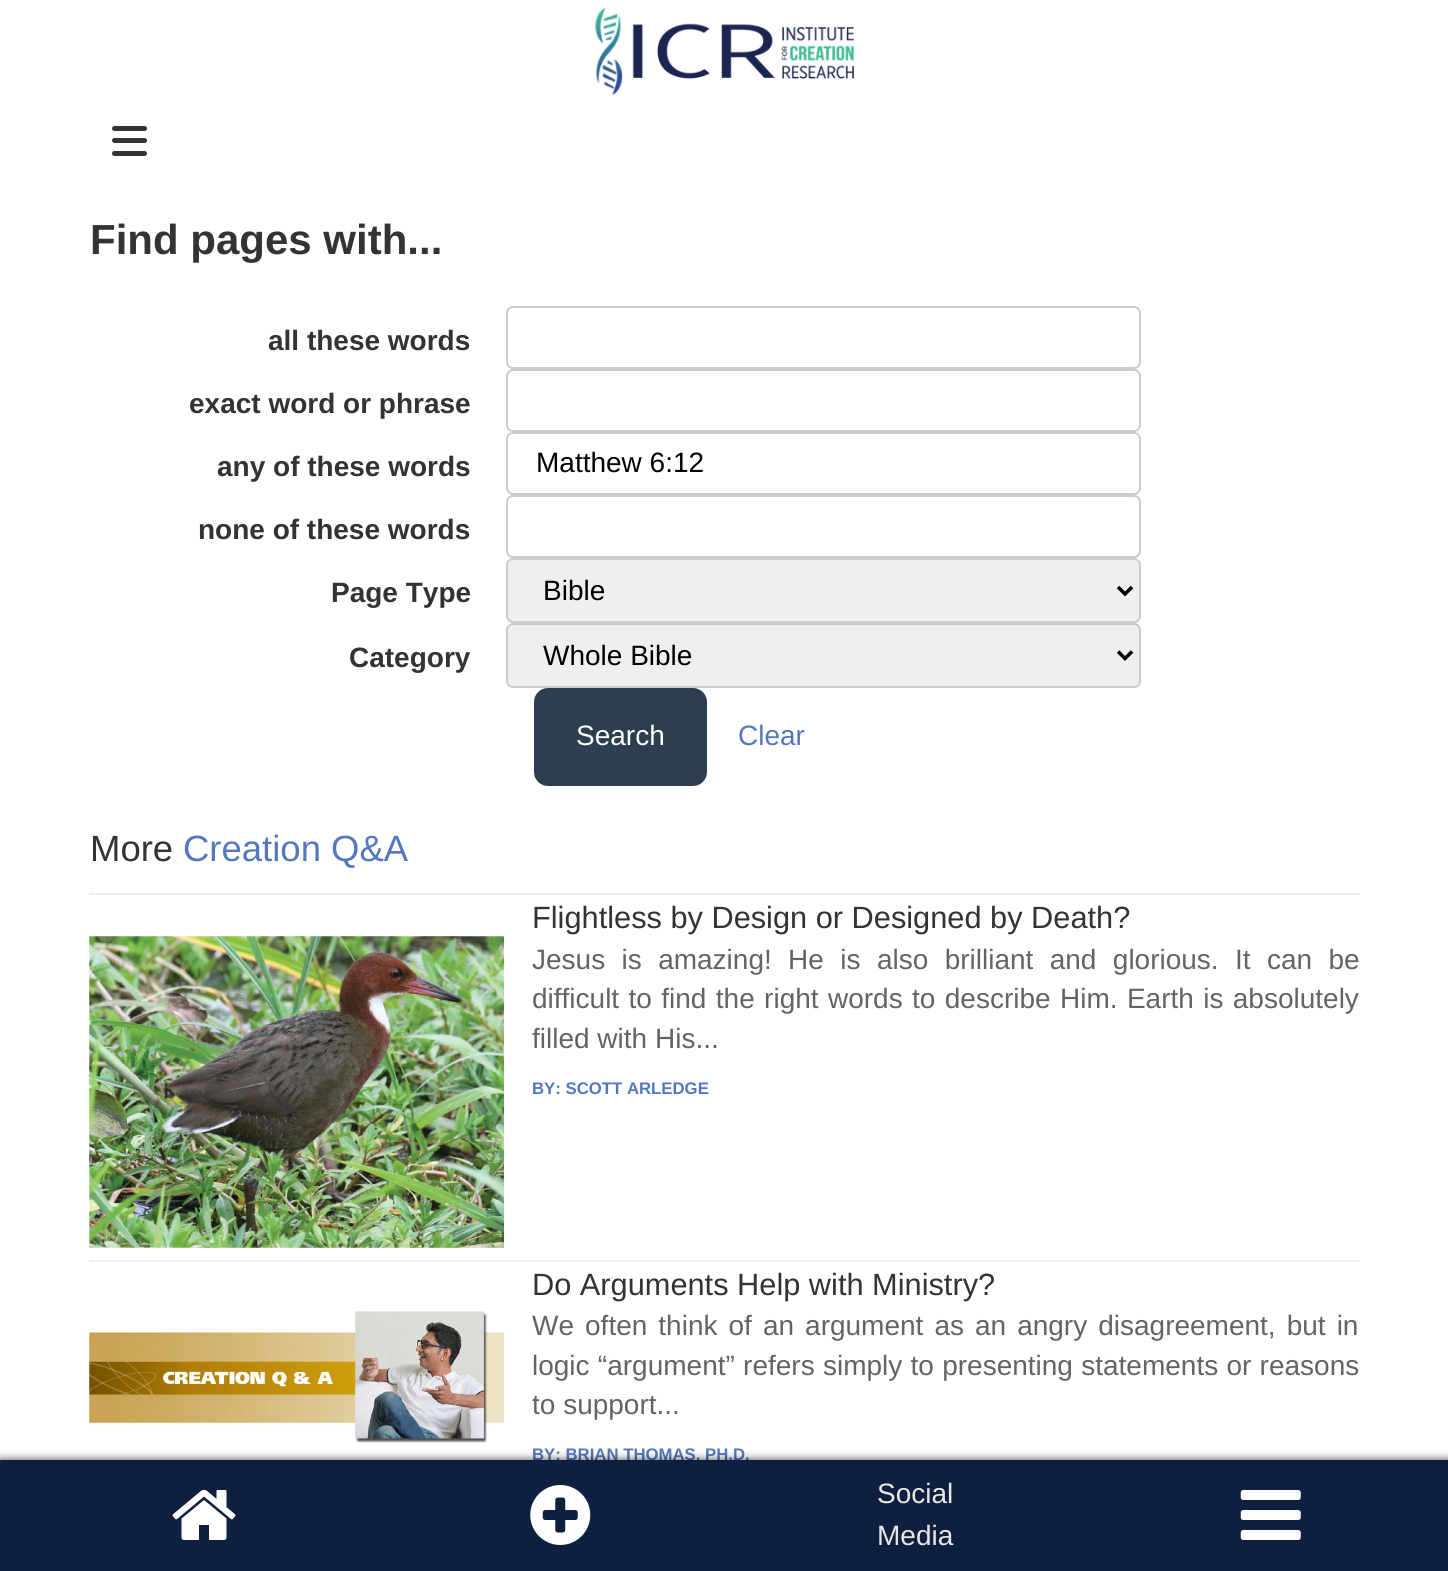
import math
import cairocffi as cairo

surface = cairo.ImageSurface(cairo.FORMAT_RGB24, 1448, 1571)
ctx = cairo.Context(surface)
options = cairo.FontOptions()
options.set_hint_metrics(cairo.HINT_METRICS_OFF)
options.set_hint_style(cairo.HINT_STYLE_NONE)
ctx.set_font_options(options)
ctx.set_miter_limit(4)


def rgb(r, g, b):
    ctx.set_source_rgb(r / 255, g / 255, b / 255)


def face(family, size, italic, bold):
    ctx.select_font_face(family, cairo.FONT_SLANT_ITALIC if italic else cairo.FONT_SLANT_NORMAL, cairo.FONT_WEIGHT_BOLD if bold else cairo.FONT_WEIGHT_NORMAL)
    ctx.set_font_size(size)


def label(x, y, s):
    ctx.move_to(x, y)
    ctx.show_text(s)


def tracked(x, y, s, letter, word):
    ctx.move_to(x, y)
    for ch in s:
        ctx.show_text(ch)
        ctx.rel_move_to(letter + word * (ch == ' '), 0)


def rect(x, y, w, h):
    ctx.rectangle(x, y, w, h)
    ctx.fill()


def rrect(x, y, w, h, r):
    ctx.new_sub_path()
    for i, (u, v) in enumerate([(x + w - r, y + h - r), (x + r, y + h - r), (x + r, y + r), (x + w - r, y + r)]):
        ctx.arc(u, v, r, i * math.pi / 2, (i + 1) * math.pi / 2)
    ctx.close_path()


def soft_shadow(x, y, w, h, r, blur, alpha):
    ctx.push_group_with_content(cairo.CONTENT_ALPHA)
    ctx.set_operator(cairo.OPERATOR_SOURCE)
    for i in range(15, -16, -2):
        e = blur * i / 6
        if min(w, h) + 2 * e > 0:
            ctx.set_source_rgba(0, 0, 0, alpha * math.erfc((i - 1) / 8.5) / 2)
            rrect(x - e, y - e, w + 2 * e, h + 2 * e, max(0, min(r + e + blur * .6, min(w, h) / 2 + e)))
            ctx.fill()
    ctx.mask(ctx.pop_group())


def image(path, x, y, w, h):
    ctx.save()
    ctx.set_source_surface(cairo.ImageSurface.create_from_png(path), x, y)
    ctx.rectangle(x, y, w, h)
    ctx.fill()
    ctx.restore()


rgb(255, 255, 255)
ctx.paint()
image('image0.png', 595, 7, 259, 88)
rgb(51, 51, 51)
rrect(112, 126, 35, 5, 2.5)
ctx.fill()
rrect(112, 138, 35, 5, 2.5)
ctx.fill()
rrect(112, 151, 35, 5, 2.5)
ctx.fill()
face('Liberation Sans', 42, 0, 1)
label(90, 254, 'Find pages with...')
face('Liberation Sans', 28, 0, 1)
label(268, 350, 'all these words')
rrect(507, 307, 633, 61, 6)
rgb(204, 204, 204)
ctx.stroke()
rgb(51, 51, 51)
label(189, 413, 'exact word or phrase')
rrect(507, 370, 633, 61, 6)
rgb(204, 204, 204)
ctx.stroke()
rgb(51, 51, 51)
label(217, 476, 'any of these words')
rrect(507, 433, 633, 61, 6)
rgb(204, 204, 204)
ctx.stroke()
face('Liberation Sans', 28, 0, 0)
rgb(0, 0, 0)
label(536, 472, 'Matthew 6:12')
face('Liberation Sans', 28, 0, 1)
rgb(51, 51, 51)
label(198, 539, 'none of these words')
rrect(507, 496, 633, 61, 6)
rgb(204, 204, 204)
ctx.stroke()
rgb(51, 51, 51)
label(331, 602, 'Page Type')
rgb(239, 239, 239)
rrect(507, 559, 633, 63, 6)
ctx.fill_preserve()
rgb(204, 204, 204)
ctx.stroke()
ctx.new_path()
ctx.move_to(1118, 587)
ctx.line_to(1125, 594)
ctx.line_to(1132, 587)
rgb(0, 0, 0)
ctx.set_line_width(3.5)
ctx.stroke()
face('Liberation Sans', 28, 0, 0)
label(543, 600, 'Bible')
face('Liberation Sans', 28, 0, 1)
rgb(51, 51, 51)
label(349, 667, 'Category')
rgb(239, 239, 239)
rrect(507, 624, 633, 63, 6)
ctx.fill_preserve()
rgb(204, 204, 204)
ctx.set_line_width(2)
ctx.stroke()
ctx.new_path()
ctx.move_to(1118, 651.5)
ctx.line_to(1125, 658.5)
ctx.line_to(1132, 651.5)
rgb(0, 0, 0)
ctx.set_line_width(3.5)
ctx.stroke()
face('Liberation Sans', 28, 0, 0)
label(543, 665, 'Whole Bible')
rgb(45, 62, 80)
rrect(534, 688, 173, 98, 14)
ctx.fill()
rgb(255, 255, 255)
label(576, 745, 'Search')
rgb(84, 120, 192)
label(738, 745, 'Clear')
face('Liberation Sans', 36.5, 0, 0)
rgb(51, 51, 51)
label(90, 861, 'More')
rgb(84, 120, 192)
label(183, 861, 'Creation Q&A')
rgb(238, 238, 238)
rect(89, 893, 1271, 2)
image('image1.png', 89, 936, 415, 312)
face('Liberation Sans', 30.75, 0, 0)
rgb(51, 51, 51)
label(532, 928, 'Flightless by Design or Designed by Death?')
face('Liberation Sans', 28, 0, 0)
rgb(102, 100, 99)
tracked(532, 969, 'Jesus is amazing! He is also brilliant and glorious. It can be', 0, 8.6)
tracked(532, 1008, 'difficult to find the right words to describe Him. Earth is absolutely', 0, 1.6)
label(532, 1048, 'filled with His...')
face('Liberation Sans', 16.75, 0, 1)
rgb(84, 120, 192)
label(532, 1094, 'BY: SCOTT ARLEDGE')
rgb(238, 238, 238)
rect(89, 1260, 1271, 2)
image('image2.png', 89, 1310, 415, 133)
face('Liberation Sans', 30.75, 0, 0)
rgb(51, 51, 51)
label(532, 1295, 'Do Arguments Help with Ministry?')
face('Liberation Sans', 28, 0, 0)
rgb(102, 100, 99)
tracked(532, 1335, 'We often think of an argument as an angry disagreement, but in', 0, 3.25)
tracked(532, 1375, 'logic “argument” refers simply to presenting statements or reasons', 0, 0.5)
label(532, 1414, 'to support...')
face('Liberation Sans', 16.75, 0, 1)
rgb(84, 120, 192)
label(532, 1460, 'BY: BRIAN THOMAS, PH.D.')
rgb(0, 0, 0)
soft_shadow(0, 1460, 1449, 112, 0, 4.5, 0.75)
rgb(15, 31, 64)
rect(0, 1460, 1448, 111)
image('image3.png', 172, 1489, 64, 51)
image('image4.png', 530, 1485, 61, 60)
face('Liberation Sans', 28, 0, 0)
rgb(232, 230, 227)
label(877, 1503, 'Social')
label(877, 1545, 'Media')
image('image5.png', 1240, 1490, 61, 50)
surface.write_to_png('render.png')
